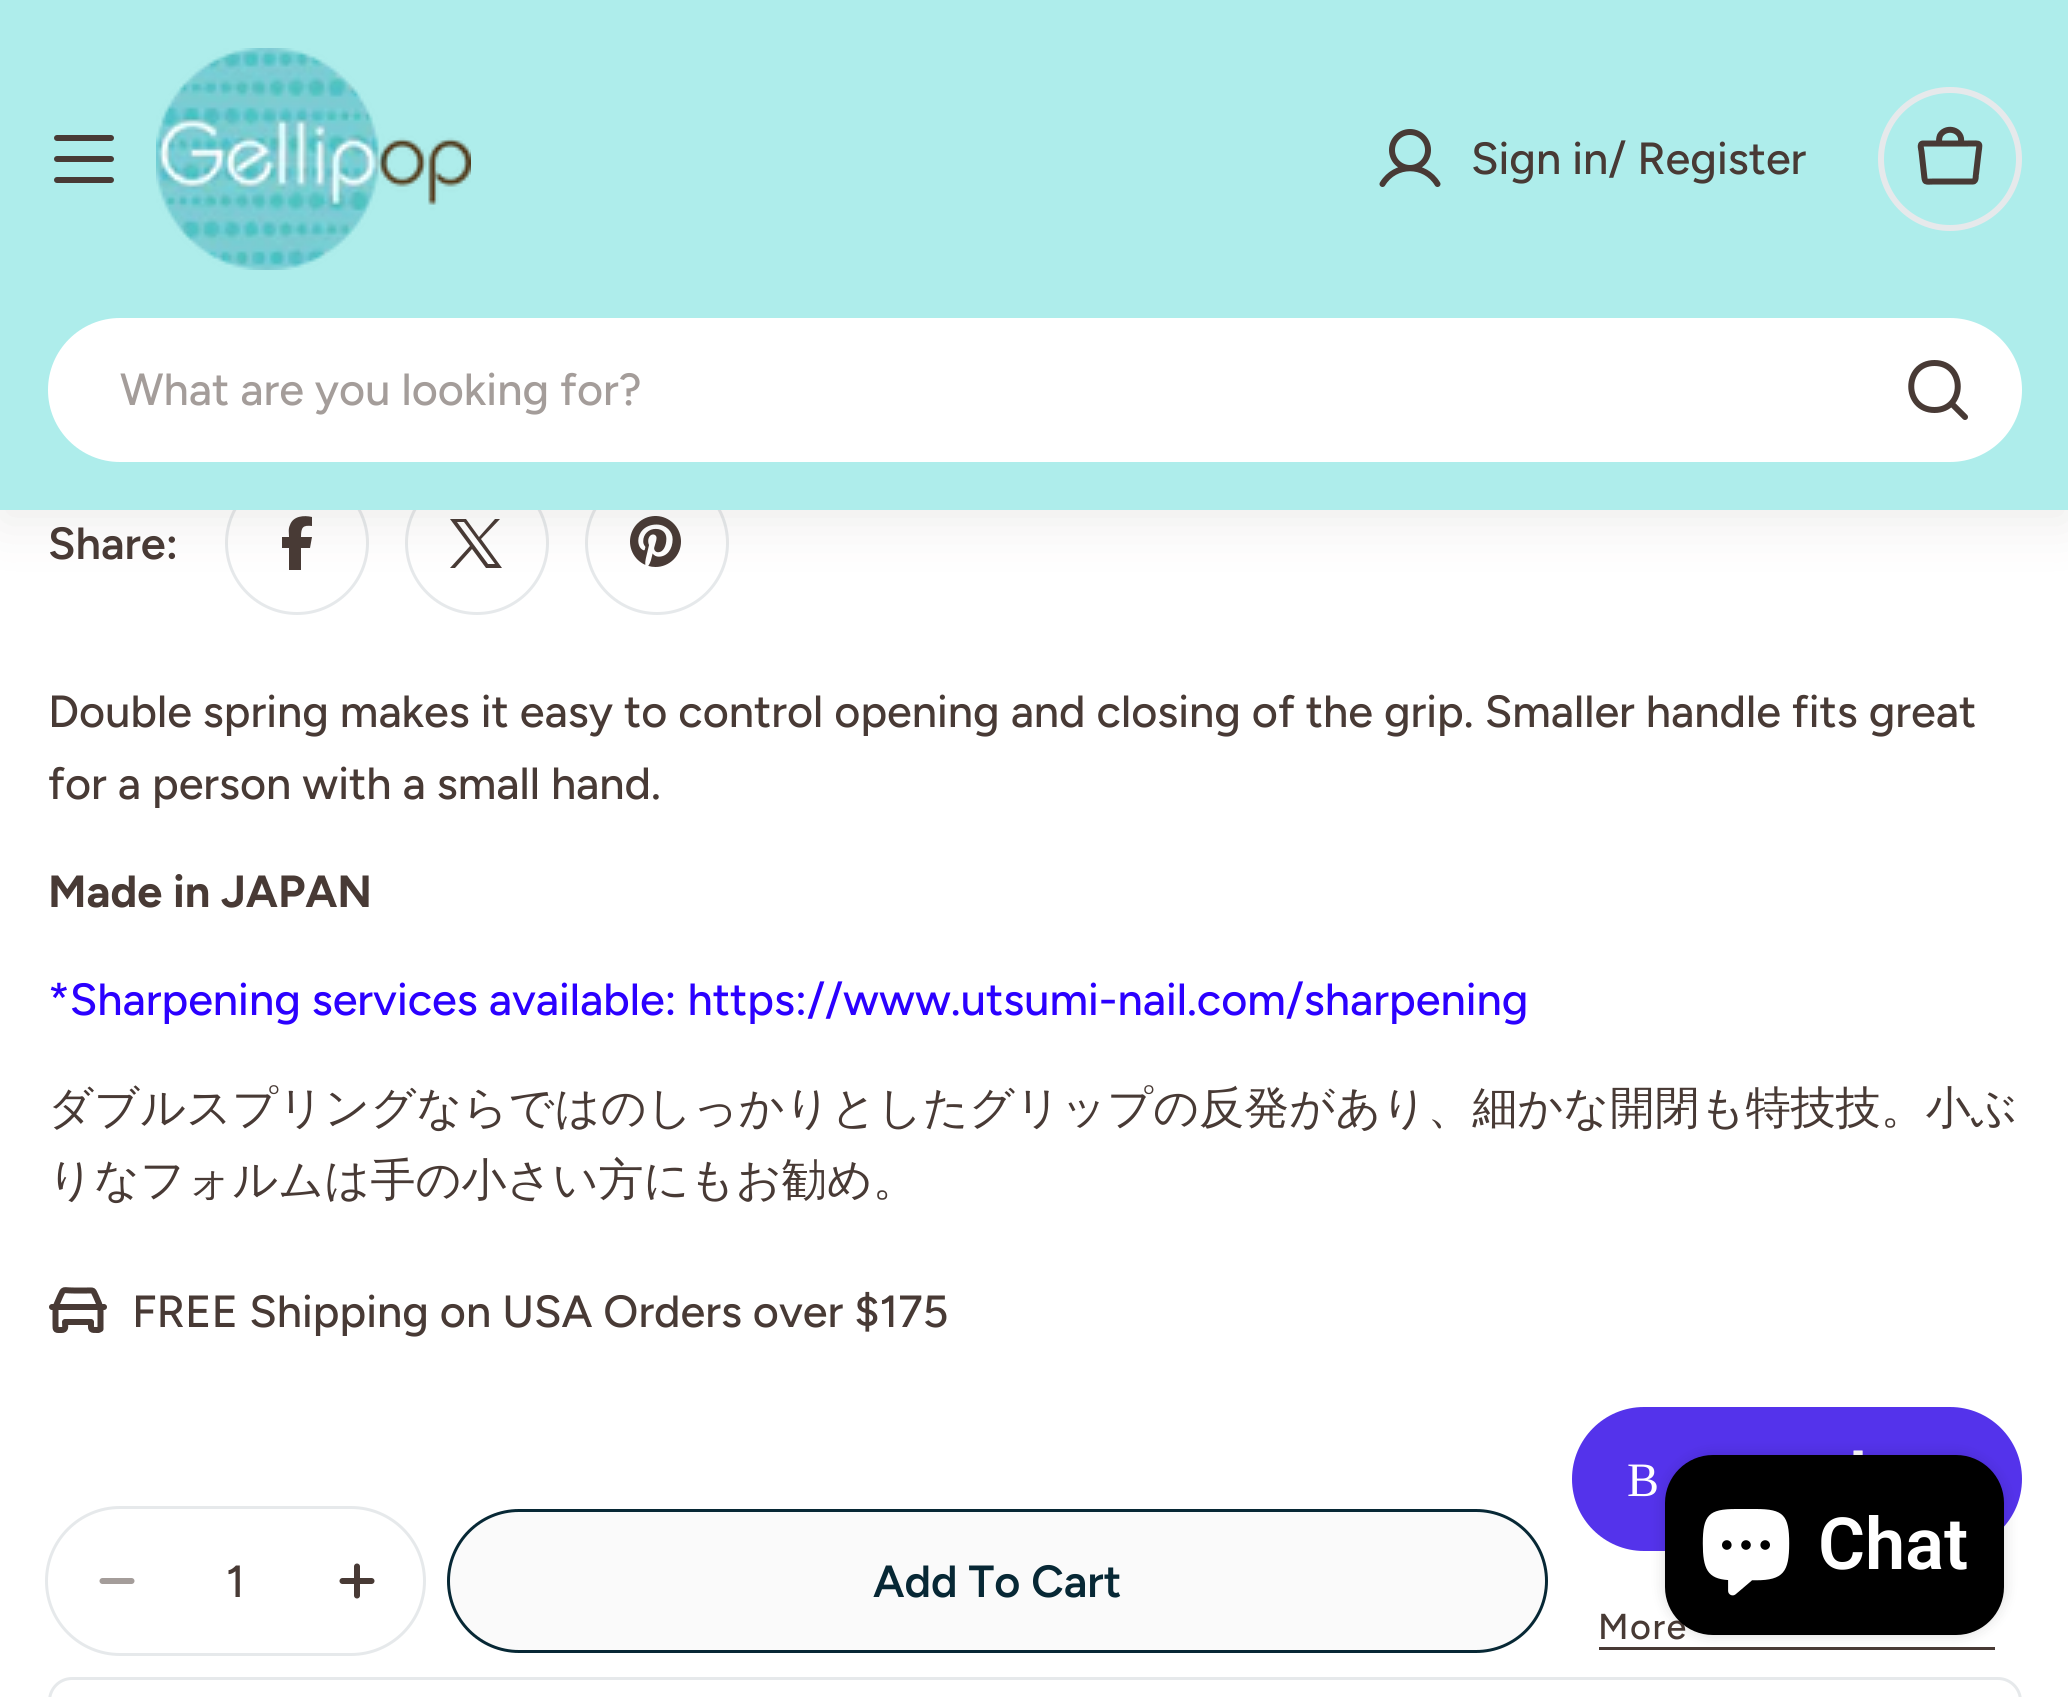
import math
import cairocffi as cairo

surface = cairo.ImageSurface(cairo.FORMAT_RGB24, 2068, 1697)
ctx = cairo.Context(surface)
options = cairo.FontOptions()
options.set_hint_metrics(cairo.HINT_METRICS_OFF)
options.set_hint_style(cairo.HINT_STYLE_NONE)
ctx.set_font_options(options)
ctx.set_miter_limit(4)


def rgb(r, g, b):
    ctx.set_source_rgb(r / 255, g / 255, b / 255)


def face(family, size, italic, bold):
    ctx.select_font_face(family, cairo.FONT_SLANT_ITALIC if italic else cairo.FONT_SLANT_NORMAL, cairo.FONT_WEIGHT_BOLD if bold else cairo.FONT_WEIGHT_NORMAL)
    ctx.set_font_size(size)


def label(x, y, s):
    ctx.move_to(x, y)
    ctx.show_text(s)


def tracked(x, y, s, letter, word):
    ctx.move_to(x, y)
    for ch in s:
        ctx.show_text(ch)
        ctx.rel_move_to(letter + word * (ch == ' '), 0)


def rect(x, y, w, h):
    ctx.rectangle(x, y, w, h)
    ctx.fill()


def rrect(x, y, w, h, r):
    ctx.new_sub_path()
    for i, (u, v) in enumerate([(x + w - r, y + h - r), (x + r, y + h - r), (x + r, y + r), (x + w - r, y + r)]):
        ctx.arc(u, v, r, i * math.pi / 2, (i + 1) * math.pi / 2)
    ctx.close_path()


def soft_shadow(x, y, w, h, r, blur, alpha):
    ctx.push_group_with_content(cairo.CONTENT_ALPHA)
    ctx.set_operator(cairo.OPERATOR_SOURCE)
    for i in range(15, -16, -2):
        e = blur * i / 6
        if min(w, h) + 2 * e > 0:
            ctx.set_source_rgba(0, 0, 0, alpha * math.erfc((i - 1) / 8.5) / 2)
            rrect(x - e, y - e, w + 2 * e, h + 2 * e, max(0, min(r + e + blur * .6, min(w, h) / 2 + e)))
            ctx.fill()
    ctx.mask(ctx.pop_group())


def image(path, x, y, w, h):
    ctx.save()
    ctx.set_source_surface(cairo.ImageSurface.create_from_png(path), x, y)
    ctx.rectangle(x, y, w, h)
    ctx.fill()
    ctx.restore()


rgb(255, 255, 255)
ctx.paint()
ctx.arc(297, 543, 70.5, 0, 2 * math.pi)
rgb(230, 233, 235)
ctx.set_line_width(3)
ctx.stroke()
rgb(72, 58, 53)
ctx.new_path()
ctx.move_to(289, 548)
ctx.line_to(289, 570)
ctx.line_to(301, 570)
ctx.line_to(301, 548)
ctx.line_to(310, 548)
ctx.line_to(312, 537)
ctx.line_to(301, 537)
ctx.curve_to(301, 527, 303, 525, 312, 526)
ctx.line_to(312, 517)
ctx.curve_to(304, 515, 293, 516, 290, 525)
ctx.curve_to(288, 529, 289, 533, 289, 537)
ctx.line_to(282, 537)
ctx.line_to(282, 548)
ctx.close_path()
ctx.fill()
ctx.arc(477, 543, 70.5, 0, 2 * math.pi)
rgb(230, 233, 235)
ctx.stroke()
rgb(72, 58, 53)
ctx.new_path()
ctx.move_to(450, 519)
ctx.line_to(470, 546)
ctx.line_to(450, 568)
ctx.line_to(455, 568)
ctx.line_to(472, 549)
ctx.line_to(486, 568)
ctx.line_to(502, 568)
ctx.line_to(481, 539)
ctx.line_to(500, 519)
ctx.line_to(495, 519)
ctx.line_to(479, 537)
ctx.line_to(466, 519)
ctx.close_path()
ctx.move_to(457, 522)
ctx.line_to(464, 522)
ctx.line_to(495, 564)
ctx.line_to(488, 564)
ctx.close_path()
ctx.fill()
ctx.arc(657, 543, 70.5, 0, 2 * math.pi)
rgb(230, 233, 235)
ctx.stroke()
image('image1.png', 630, 516, 51, 51)
rgb(72, 58, 53)
soft_shadow(0, 12, 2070, 510, 0, 27, 0.1)
rgb(174, 237, 235)
rect(0, 0, 2068, 510)
rgb(72, 58, 53)
rrect(54, 156, 60, 6, 3)
ctx.fill()
rrect(54, 135, 60, 6, 3)
ctx.fill()
rrect(54, 177, 60, 6, 3)
ctx.fill()
image('image0.png', 156, 48, 315, 222)
ctx.new_path()
ctx.move_to(1410, 168)
ctx.curve_to(1420, 168, 1428, 160, 1428, 150)
ctx.curve_to(1428, 140, 1420, 132, 1410, 132)
ctx.curve_to(1400, 132, 1392, 140, 1392, 150)
ctx.curve_to(1392, 160, 1400, 168, 1410, 168)
ctx.close_path()
ctx.move_to(1382.5, 184)
ctx.curve_to(1395, 163, 1425, 163, 1437.5, 184)
ctx.set_line_width(6)
ctx.set_line_cap(cairo.LINE_CAP_ROUND)
ctx.set_line_join(cairo.LINE_JOIN_ROUND)
ctx.stroke()
face('Figtree Medium', 45, 0, 0)
label(1471, 174, 'Sign in/ Register')
ctx.new_path()
ctx.arc(1950, 159, 69, 0, 2 * math.pi)
rgb(230, 233, 235)
ctx.set_line_cap(cairo.LINE_CAP_BUTT)
ctx.set_line_join(cairo.LINE_JOIN_MITER)
ctx.stroke()
ctx.new_path()
ctx.move_to(1973, 181.5)
ctx.line_to(1934.5, 181.5)
ctx.curve_to(1924.5, 181.5, 1925, 183.5, 1924, 174)
ctx.line_to(1921.5, 151.5)
ctx.curve_to(1921.5, 150, 1919, 143.5, 1923, 143.5)
ctx.line_to(1968, 143.5)
ctx.curve_to(1982.5, 143.5, 1979.5, 141.5, 1978, 157)
ctx.line_to(1976, 174)
ctx.curve_to(1975.5, 175, 1976.5, 181.5, 1973, 181.5)
ctx.close_path()
rgb(72, 58, 53)
ctx.set_line_cap(cairo.LINE_CAP_ROUND)
ctx.set_line_join(cairo.LINE_JOIN_ROUND)
ctx.stroke()
ctx.new_path()
ctx.move_to(1939, 143)
ctx.curve_to(1939, 140.5, 1939, 138, 1940, 135.5)
ctx.curve_to(1944.5, 127.5, 1957, 128, 1960.5, 136.5)
ctx.curve_to(1961.5, 139, 1961, 141, 1961, 143)
ctx.stroke()
rgb(255, 255, 255)
rrect(48, 318, 1974, 144, 72)
ctx.fill()
rgb(164, 157, 154)
label(120, 405, 'What are you looking for?')
ctx.new_path()
ctx.move_to(1934.5, 410)
ctx.curve_to(1965.5, 410, 1965.5, 363, 1934.5, 363)
ctx.curve_to(1903.5, 363, 1903.5, 410, 1934.5, 410)
ctx.close_path()
ctx.move_to(1951.5, 403.5)
ctx.line_to(1965, 417)
rgb(72, 58, 53)
ctx.stroke()
face('Figtree SemiBold', 45, 0, 0)
label(48, 559, 'Share:')
face('Figtree Medium', 45, 0, 0)
label(48, 727, 'Double spring makes it easy to control opening and closing of the grip. Smaller handle fits great')
label(48, 799, 'for a person with a small hand.')
face('Figtree', 45, 0, 1)
label(48, 907, 'Made in JAPAN')
face('Figtree Medium', 45, 0, 0)
rgb(43, 0, 255)
label(48, 1015, '*Sharpening services available: https://www.utsumi-nail.com/sharpening')
face('WenQuanYi Zen Hei Medium', 45, 0, 0)
rgb(72, 58, 53)
label(48, 1123, 'ダブルスプリングならではのしっかりとしたグリップの反発があり、細かな開閉も特技技。小ぶ')
label(48, 1195, 'りなフォルムは手の小さい方にもお勧め。')
ctx.new_path()
ctx.move_to(52, 1307)
ctx.line_to(104, 1307)
ctx.move_to(98.5, 1330)
ctx.curve_to(90, 1330, 91, 1330.5, 91, 1322)
ctx.line_to(65, 1322)
ctx.curve_to(65, 1326.5, 66.5, 1330, 61.5, 1330)
ctx.curve_to(55.5, 1330, 55.5, 1330.5, 55.5, 1324.5)
ctx.line_to(55.5, 1307)
ctx.line_to(60, 1296.5)
ctx.curve_to(64, 1288, 62, 1290.5, 73.5, 1290.5)
ctx.line_to(87, 1290.5)
ctx.curve_to(94.5, 1290.5, 92.5, 1289.5, 96, 1296.5)
ctx.curve_to(98, 1301.5, 100.5, 1305.5, 100.5, 1310.5)
ctx.line_to(100.5, 1329)
ctx.close_path()
ctx.stroke()
face('Figtree Medium', 45, 0, 0)
label(132, 1327, 'FREE Shipping on USA Orders over $175')
rrect(46.5, 1507.5, 378, 147, 73.5)
rgb(230, 233, 235)
ctx.set_line_width(3)
ctx.set_line_cap(cairo.LINE_CAP_BUTT)
ctx.set_line_join(cairo.LINE_JOIN_MITER)
ctx.stroke()
ctx.new_path()
ctx.move_to(102.5, 1581)
ctx.line_to(131.5, 1581)
rgb(164, 157, 154)
ctx.set_line_width(6)
ctx.set_line_cap(cairo.LINE_CAP_ROUND)
ctx.set_line_join(cairo.LINE_JOIN_ROUND)
ctx.stroke()
rgb(72, 58, 53)
label(226, 1597, '1')
ctx.new_path()
ctx.move_to(342.5, 1581)
ctx.line_to(371.5, 1581)
ctx.move_to(357, 1566.5)
ctx.line_to(357, 1595.5)
ctx.stroke()
rgb(250, 250, 250)
rrect(448.5, 1510.5, 1098, 141, 70.5)
ctx.fill_preserve()
rgb(7, 40, 53)
ctx.set_line_width(3)
ctx.set_line_cap(cairo.LINE_CAP_BUTT)
ctx.set_line_join(cairo.LINE_JOIN_MITER)
ctx.stroke()
face('Figtree SemiBold', 45, 0, 0)
label(873, 1597, 'Add To Cart')
rgb(84, 51, 235)
rrect(1572, 1407, 450, 144, 72)
ctx.fill()
image('image2.png', 1853, 1450, 10, 5)
face('Liberation Serif', 48, 0, 0)
rgb(255, 255, 255)
label(1627, 1496, 'B')
face('Figtree Medium', 36, 0, 0)
rgb(72, 58, 53)
tracked(1598, 1639, 'More', 1.5, 0)
rect(1599, 1647, 396, 3)
rrect(49.5, 1678.5, 1971, 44, 22.5)
rgb(230, 233, 235)
ctx.stroke()
rgb(0, 0, 0)
soft_shadow(1665, 1455, 339, 180, 48, 7.5, 0.15)
rgb(0, 0, 0)
rrect(1665, 1455, 339, 180, 48)
ctx.fill()
image('image3.png', 1702, 1509, 88, 87)
face('Roboto SemiBold', 72, 0, 0)
rgb(255, 255, 255)
label(1818, 1569, 'Chat')
surface.write_to_png('render.png')
